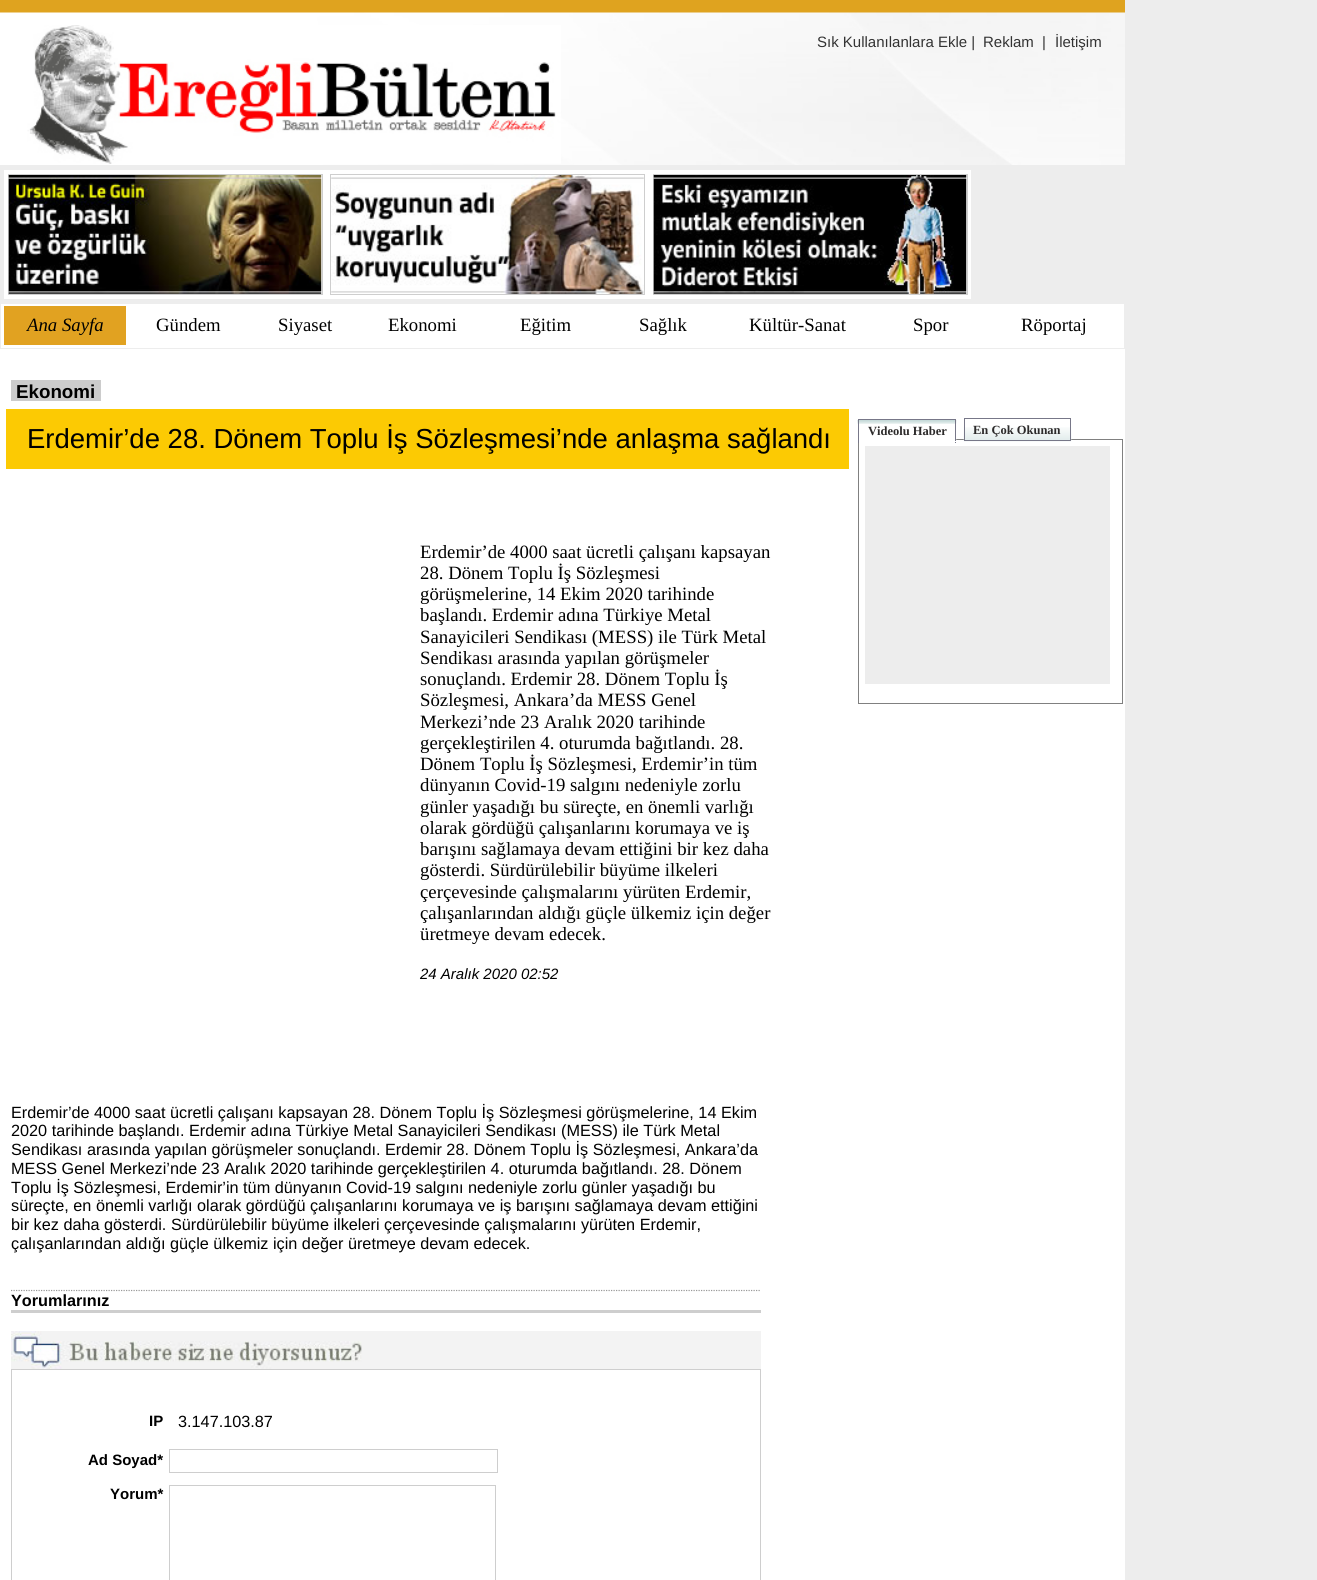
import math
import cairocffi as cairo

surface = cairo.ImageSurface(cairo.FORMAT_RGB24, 1317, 1580)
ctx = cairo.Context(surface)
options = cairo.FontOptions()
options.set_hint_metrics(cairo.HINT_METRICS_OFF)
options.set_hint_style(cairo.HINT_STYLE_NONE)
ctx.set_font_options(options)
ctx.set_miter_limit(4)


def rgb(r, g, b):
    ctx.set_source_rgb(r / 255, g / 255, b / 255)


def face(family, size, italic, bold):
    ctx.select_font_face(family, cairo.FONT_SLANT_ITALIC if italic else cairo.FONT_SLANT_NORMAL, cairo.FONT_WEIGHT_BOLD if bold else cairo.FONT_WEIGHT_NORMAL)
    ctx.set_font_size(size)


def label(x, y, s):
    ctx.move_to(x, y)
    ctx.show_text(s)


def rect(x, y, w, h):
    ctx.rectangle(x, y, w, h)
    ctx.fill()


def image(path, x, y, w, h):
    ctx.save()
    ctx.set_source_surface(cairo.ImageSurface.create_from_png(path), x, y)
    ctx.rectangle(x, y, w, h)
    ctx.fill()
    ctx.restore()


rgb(237, 237, 237)
ctx.paint()
image('image0.png', 0, 0, 1125, 165)
image('image1.png', 27, 25, 534, 139)
face('Liberation Sans', 15, 0, 0)
rgb(51, 51, 51)
label(817, 47, 'Sık Kullanılanlara Ekle |')
label(983, 47, 'Reklam')
label(1042, 47, '|')
label(1055, 47, 'İletişim')
rgb(255, 255, 255)
rect(4, 170, 967, 129)
ctx.rectangle(8.5, 174.5, 314, 120)
rgb(206, 206, 206)
ctx.set_line_width(1)
ctx.stroke()
image('image2.png', 8, 175, 314, 119)
ctx.rectangle(330.5, 174.5, 314, 120)
ctx.stroke()
image('image3.png', 331, 175, 313, 119)
ctx.rectangle(653.5, 174.5, 314, 120)
ctx.stroke()
image('image4.png', 653, 175, 314, 119)
rgb(255, 255, 255)
rect(1, 304, 1123, 44)
rgb(225, 162, 33)
rect(4, 306, 122, 39)
face('Liberation Serif', 18.75, 1, 0)
rgb(0, 0, 0)
label(27, 331, 'Ana Sayfa')
face('Liberation Serif', 18.75, 0, 0)
label(156, 331, 'Gündem')
label(278, 331, 'Siyaset')
label(388, 331, 'Ekonomi')
label(520, 331, 'Eğitim')
label(639, 331, 'Sağlık')
label(749, 331, 'Kültür-Sanat')
label(913, 331, 'Spor')
label(1021, 331, 'Röportaj')
rgb(255, 255, 255)
rect(0, 349, 1125, 1231)
rgb(204, 204, 204)
rect(11, 380, 90, 21)
face('Liberation Sans', 18.75, 0, 1)
rgb(0, 0, 0)
label(16, 398, 'Ekonomi')
rgb(252, 202, 3)
rect(6, 409, 843, 60)
face('Liberation Sans', 27.5, 0, 0)
rgb(0, 0, 0)
label(27, 448, 'Erdemir’de 28. Dönem Toplu İş Sözleşmesi’nde anlaşma sağlandı')
face('Liberation Serif', 18.75, 0, 0)
label(420, 558, 'Erdemir’de 4000 saat ücretli çalışanı kapsayan')
label(420, 579, '28. Dönem Toplu İş Sözleşmesi')
label(420, 600, 'görüşmelerine, 14 Ekim 2020 tarihinde')
label(420, 621, 'başlandı. Erdemir adına Türkiye Metal')
label(420, 643, 'Sanayicileri Sendikası (MESS) ile Türk Metal')
label(420, 664, 'Sendikası arasında yapılan görüşmeler')
label(420, 685, 'sonuçlandı. Erdemir 28. Dönem Toplu İş')
label(420, 706, 'Sözleşmesi, Ankara’da MESS Genel')
label(420, 728, 'Merkezi’nde 23 Aralık 2020 tarihinde')
label(420, 749, 'gerçekleştirilen 4. oturumda bağıtlandı. 28.')
label(420, 770, 'Dönem Toplu İş Sözleşmesi, Erdemir’in tüm')
label(420, 791, 'dünyanın Covid-19 salgını nedeniyle zorlu')
label(420, 813, 'günler yaşadığı bu süreçte, en önemli varlığı')
label(420, 834, 'olarak gördüğü çalışanlarını korumaya ve iş')
label(420, 855, 'barışını sağlamaya devam ettiğini bir kez daha')
label(420, 876, 'gösterdi. Sürdürülebilir büyüme ilkeleri')
label(420, 898, 'çerçevesinde çalışmalarını yürüten Erdemir,')
label(420, 919, 'çalışanlarından aldığı güçle ülkemiz için değer')
label(420, 940, 'üretmeye devam edecek.')
face('Liberation Sans', 15, 1, 0)
label(420, 979, '24 Aralık 2020 02:52')
face('Liberation Sans', 16.25, 0, 0)
label(11, 1118, 'Erdemir’de 4000 saat ücretli çalışanı kapsayan 28. Dönem Toplu İş Sözleşmesi görüşmelerine, 14 Ekim')
label(11, 1136, '2020 tarihinde başlandı. Erdemir adına Türkiye Metal Sanayicileri Sendikası (MESS) ile Türk Metal')
label(11, 1155, 'Sendikası arasında yapılan görüşmeler sonuçlandı. Erdemir 28. Dönem Toplu İş Sözleşmesi, Ankara’da')
label(11, 1174, 'MESS Genel Merkezi’nde 23 Aralık 2020 tarihinde gerçekleştirilen 4. oturumda bağıtlandı. 28. Dönem')
label(11, 1193, 'Toplu İş Sözleşmesi, Erdemir’in tüm dünyanın Covid-19 salgını nedeniyle zorlu günler yaşadığı bu')
label(11, 1211, 'süreçte, en önemli varlığı olarak gördüğü çalışanlarını korumaya ve iş barışını sağlamaya devam ettiğini')
label(11, 1230, 'bir kez daha gösterdi. Sürdürülebilir büyüme ilkeleri çerçevesinde çalışmalarını yürüten Erdemir,')
label(11, 1249, 'çalışanlarından aldığı güçle ülkemiz için değer üretmeye devam edecek.')
ctx.new_path()
ctx.move_to(11, 1290.5)
ctx.line_to(761, 1290.5)
rgb(153, 153, 153)
ctx.set_line_width(1.2)
ctx.set_dash([1.25, 1.25])
ctx.stroke()
face('Liberation Sans', 16.25, 0, 1)
rgb(0, 0, 0)
label(11, 1306, 'Yorumlarınız')
rgb(206, 206, 206)
rect(11, 1310, 750, 3)
rgb(243, 243, 243)
rect(11, 1331, 750, 38)
image('image5.png', 11, 1331, 351, 38)
ctx.rectangle(11.5, 1369.5, 749, 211)
rgb(206, 206, 206)
ctx.set_line_width(1)
ctx.set_dash([])
ctx.stroke()
face('Liberation Sans', 15, 0, 1)
rgb(0, 0, 0)
label(149, 1426, 'IP')
face('Liberation Sans', 16.25, 0, 0)
label(178, 1427, '3.147.103.87')
face('Liberation Sans', 15, 0, 1)
label(88, 1465, 'Ad Soyad*')
ctx.rectangle(169.5, 1449.5, 328, 23)
rgb(206, 206, 206)
ctx.stroke()
rgb(0, 0, 0)
label(110, 1499, 'Yorum*')
ctx.rectangle(169.5, 1485.5, 326, 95)
rgb(206, 206, 206)
ctx.stroke()
ctx.rectangle(858.5, 439.5, 264, 264)
rgb(128, 128, 128)
ctx.stroke()
image('image6.png', 857, 420, 100, 20)
image('image7.png', 963, 427, 109, 15)
ctx.rectangle(964.5, 418.5, 106, 22)
rgb(119, 119, 136)
ctx.stroke()
face('Liberation Serif', 12.5, 0, 1)
rgb(45, 43, 43)
label(973, 434, 'En Çok Okunan')
label(868, 435, 'Videolu Haber')
rgb(119, 119, 136)
rect(858, 419, 98, 1)
rect(955, 419, 1, 24)
rgb(255, 255, 255)
rect(858, 441, 98, 1)
rgb(119, 119, 136)
rect(858, 419, 1, 24)
rgb(237, 237, 237)
rect(865, 446, 245, 238)
surface.write_to_png('render.png')
